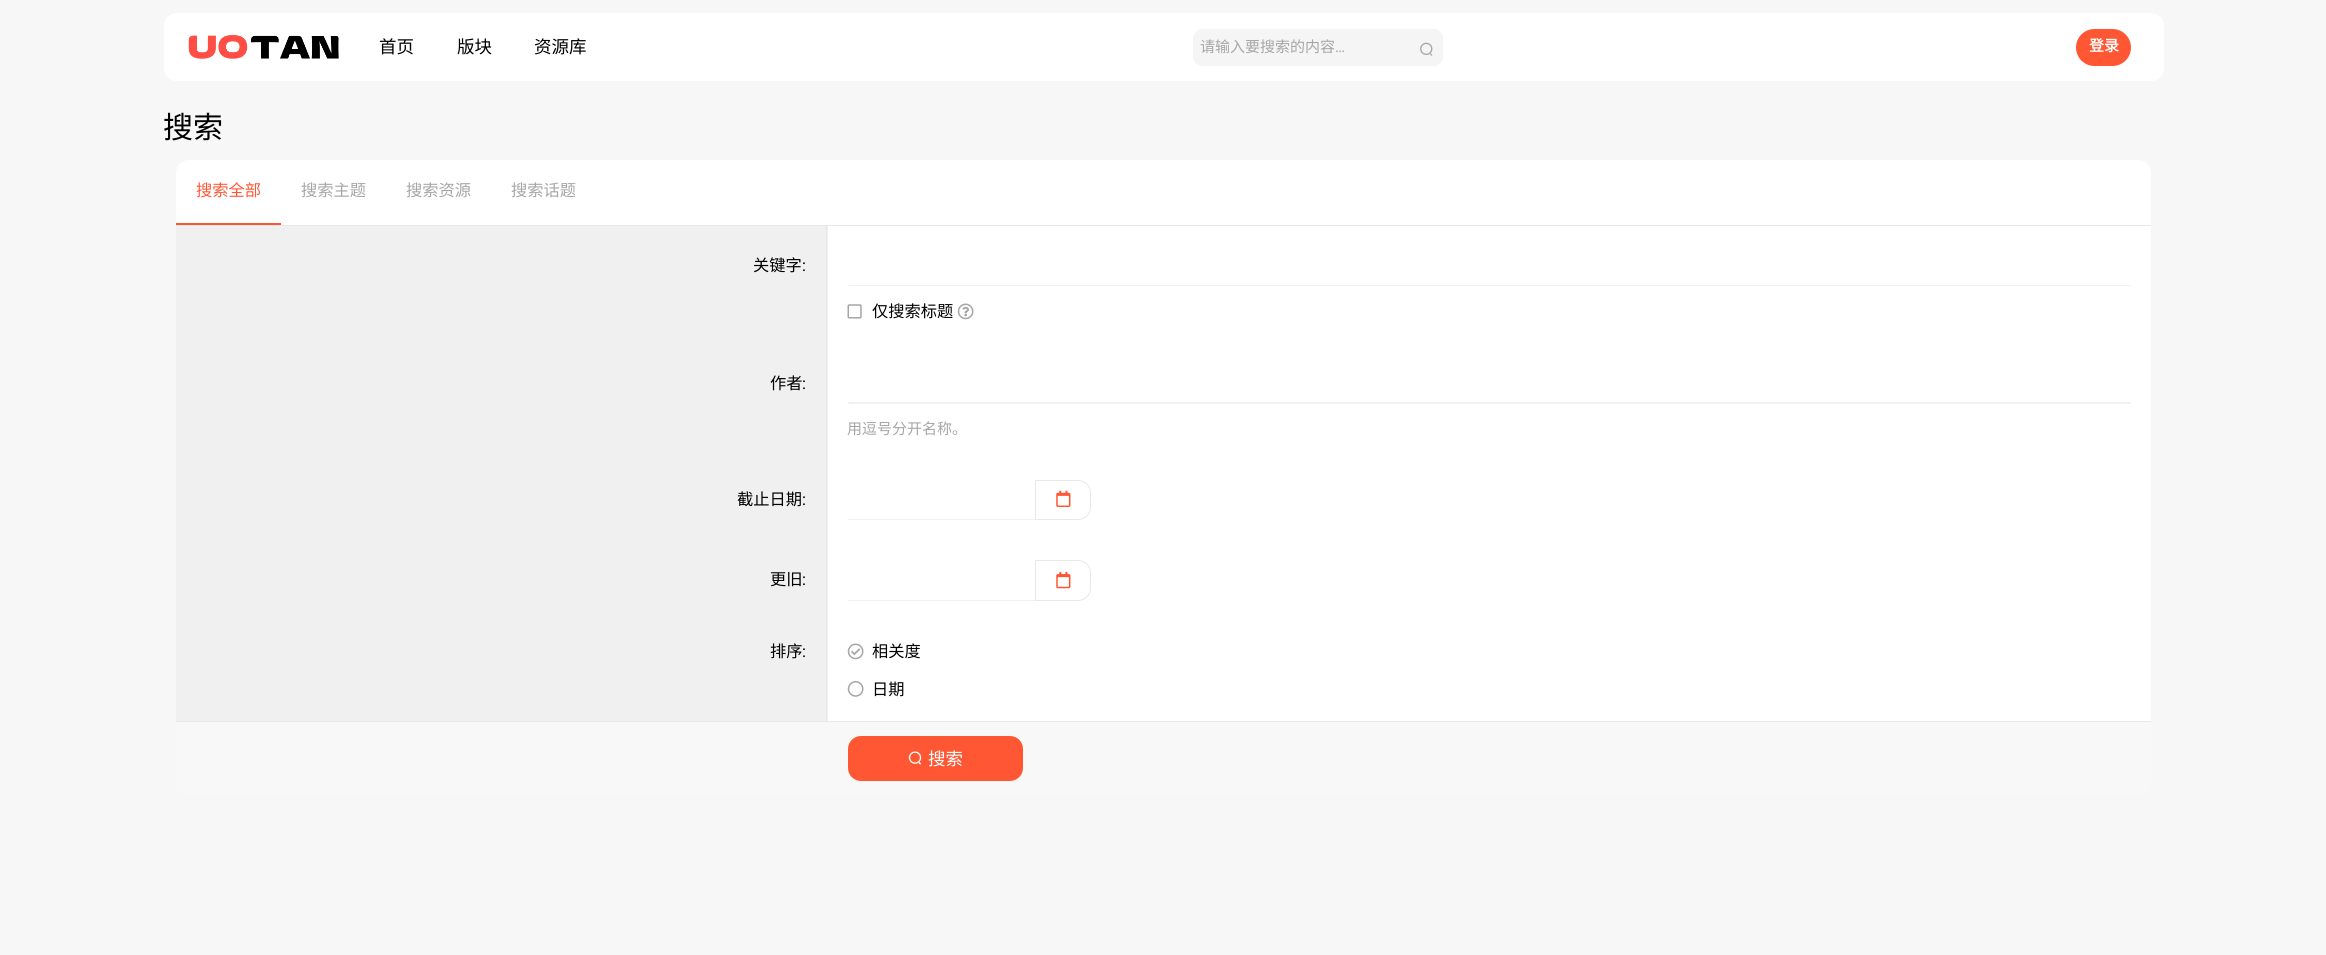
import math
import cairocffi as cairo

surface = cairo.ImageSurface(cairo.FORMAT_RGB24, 2326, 955)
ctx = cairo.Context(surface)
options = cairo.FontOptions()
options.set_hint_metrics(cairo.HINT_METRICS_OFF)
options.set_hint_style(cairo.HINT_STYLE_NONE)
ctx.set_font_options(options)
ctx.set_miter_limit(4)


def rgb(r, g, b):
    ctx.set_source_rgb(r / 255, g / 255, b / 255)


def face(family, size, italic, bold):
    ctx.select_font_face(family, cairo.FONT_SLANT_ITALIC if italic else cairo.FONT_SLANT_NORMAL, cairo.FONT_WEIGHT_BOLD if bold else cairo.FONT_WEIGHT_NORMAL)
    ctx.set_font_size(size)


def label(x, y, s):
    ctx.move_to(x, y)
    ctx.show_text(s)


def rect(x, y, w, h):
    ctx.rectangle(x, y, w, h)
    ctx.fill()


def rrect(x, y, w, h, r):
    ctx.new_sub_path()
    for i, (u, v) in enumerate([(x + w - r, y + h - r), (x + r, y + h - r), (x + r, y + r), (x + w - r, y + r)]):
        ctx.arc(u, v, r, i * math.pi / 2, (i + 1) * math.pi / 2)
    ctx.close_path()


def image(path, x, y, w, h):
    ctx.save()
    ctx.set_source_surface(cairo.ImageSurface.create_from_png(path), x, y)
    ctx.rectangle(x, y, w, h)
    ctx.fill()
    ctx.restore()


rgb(247, 247, 247)
ctx.paint()
rgb(255, 255, 255)
rrect(164, 13, 2000, 68, 13)
ctx.fill()
image('image0.png', 188, 35, 151, 24)
face('Noto Sans CJK SC', 17.5, 0, 0)
rgb(0, 0, 0)
label(379, 53, '首页')
label(457, 53, '版块')
label(534, 53, '资源库')
rgb(245, 245, 245)
rrect(1193, 29, 250, 37, 9)
ctx.fill()
face('Noto Sans CJK SC', 15, 0, 0)
rgb(166, 166, 166)
label(1200, 52, '请输入要搜索的内容')
face('Roboto', 15, 0, 0)
label(1335, 52, '…')
image('image1.png', 1420, 42, 13, 14)
rgb(255, 87, 51)
rrect(2076, 29, 55, 37, 18.5)
ctx.fill()
face('Noto Sans CJK SC', 15, 0, 1)
rgb(255, 255, 255)
label(2089, 51, '登录')
face('Noto Sans CJK SC', 30, 0, 0)
rgb(0, 0, 0)
label(163, 138, '搜索')
rgb(255, 255, 255)
rrect(176, 160, 1975, 636, 13)
ctx.fill()
rgb(232, 232, 232)
rect(176, 225, 1975, 1)
rgb(255, 87, 51)
rect(176, 223, 105, 2)
face('Noto Sans CJK SC', 16.25, 0, 0)
label(196, 196, '搜索全部')
rgb(166, 166, 166)
label(301, 196, '搜索主题')
label(406, 196, '搜索资源')
label(511, 196, '搜索话题')
rgb(240, 240, 240)
rect(176, 226, 652, 495)
rgb(232, 232, 232)
rect(826, 226, 1, 495)
rgb(0, 0, 0)
label(753, 271, '关键字')
face('Roboto', 16.25, 0, 0)
label(802, 271, ':')
rgb(241, 241, 242)
ctx.new_path()
ctx.move_to(2131, 286)
ctx.line_to(848, 286)
ctx.line_to(849, 285)
ctx.line_to(2130, 285)
ctx.close_path()
ctx.fill()
image('image2.png', 847, 304, 15, 15)
face('Noto Sans CJK SC', 16.25, 0, 0)
rgb(0, 0, 0)
label(872, 317, '仅搜索标题')
image('image3.png', 957, 303, 17, 17)
label(770, 389, '作者')
face('Roboto', 16.25, 0, 0)
label(802, 389, ':')
rgb(241, 241, 242)
ctx.new_path()
ctx.move_to(2131, 404)
ctx.line_to(848, 404)
ctx.line_to(849, 402)
ctx.line_to(2130, 402)
ctx.close_path()
ctx.fill()
face('Noto Sans CJK SC', 15, 0, 0)
rgb(166, 166, 166)
label(847, 434, '用逗号分开名称。')
face('Noto Sans CJK SC', 16.25, 0, 0)
rgb(0, 0, 0)
label(737, 505, '截止日期')
face('Roboto', 16.25, 0, 0)
label(802, 505, ':')
rgb(241, 241, 242)
ctx.new_path()
ctx.move_to(1035, 520)
ctx.line_to(848, 520)
ctx.line_to(849, 519)
ctx.line_to(1035, 519)
ctx.close_path()
ctx.fill()
ctx.new_path()
ctx.move_to(1035.5, 480.5)
ctx.line_to(1078, 480.5)
ctx.curve_to(1085, 480.5, 1090.5, 486, 1090.5, 493)
ctx.line_to(1090.5, 507)
ctx.curve_to(1090.5, 514, 1085, 519.5, 1078, 519.5)
ctx.line_to(1035.5, 519.5)
ctx.close_path()
rgb(232, 232, 232)
ctx.set_line_width(1)
ctx.stroke()
image('image4.png', 1056, 490, 15, 17)
face('Noto Sans CJK SC', 16.25, 0, 0)
rgb(0, 0, 0)
label(770, 585, '更旧')
face('Roboto', 16.25, 0, 0)
label(802, 585, ':')
rgb(241, 241, 242)
ctx.new_path()
ctx.move_to(1035, 601)
ctx.line_to(848, 601)
ctx.line_to(849, 600)
ctx.line_to(1035, 600)
ctx.close_path()
ctx.fill()
ctx.new_path()
ctx.move_to(1035.5, 560.5)
ctx.line_to(1078, 560.5)
ctx.curve_to(1085, 560.5, 1090.5, 566, 1090.5, 573)
ctx.line_to(1090.5, 588)
ctx.curve_to(1090.5, 595, 1085, 600.5, 1078, 600.5)
ctx.line_to(1035.5, 600.5)
ctx.close_path()
rgb(232, 232, 232)
ctx.stroke()
image('image5.png', 1056, 572, 15, 17)
face('Noto Sans CJK SC', 16.25, 0, 0)
rgb(0, 0, 0)
label(770, 657, '排序')
face('Roboto', 16.25, 0, 0)
label(802, 657, ':')
image('image6.png', 847, 643, 17, 17)
face('Noto Sans CJK SC', 16.25, 0, 0)
label(872, 657, '相关度')
image('image7.png', 847, 681, 17, 16)
label(872, 695, '日期')
ctx.set_source_rgba(0.969, 0.969, 0.969, 0.9)
ctx.new_path()
ctx.move_to(176, 721)
ctx.line_to(2151, 721)
ctx.line_to(2151, 785)
ctx.curve_to(2151, 791, 2146, 796, 2140, 796)
ctx.line_to(187, 796)
ctx.curve_to(181, 796, 176, 791, 176, 785)
ctx.close_path()
ctx.fill()
rgb(232, 232, 232)
rect(176, 721, 1975, 1)
rgb(255, 87, 51)
rrect(848, 736, 175, 45, 13)
ctx.fill()
image('image8.png', 908, 751, 14, 14)
face('Noto Sans CJK SC', 17.5, 0, 0)
rgb(255, 255, 255)
label(928, 765, '搜索')
surface.write_to_png('render.png')
